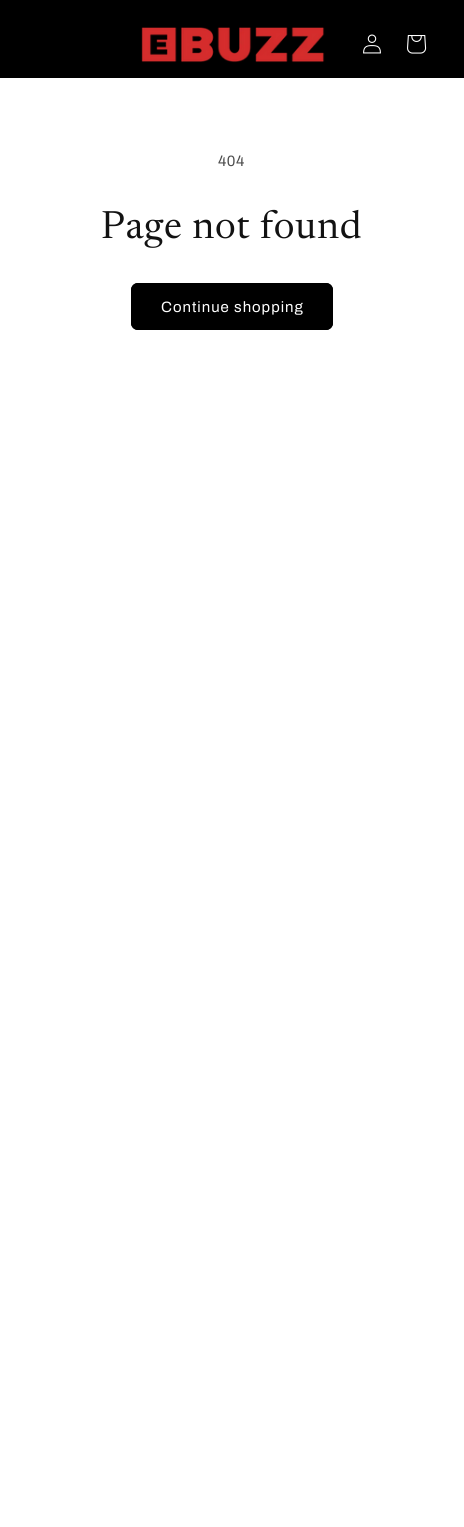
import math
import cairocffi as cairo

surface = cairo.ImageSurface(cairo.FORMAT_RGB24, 464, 1527)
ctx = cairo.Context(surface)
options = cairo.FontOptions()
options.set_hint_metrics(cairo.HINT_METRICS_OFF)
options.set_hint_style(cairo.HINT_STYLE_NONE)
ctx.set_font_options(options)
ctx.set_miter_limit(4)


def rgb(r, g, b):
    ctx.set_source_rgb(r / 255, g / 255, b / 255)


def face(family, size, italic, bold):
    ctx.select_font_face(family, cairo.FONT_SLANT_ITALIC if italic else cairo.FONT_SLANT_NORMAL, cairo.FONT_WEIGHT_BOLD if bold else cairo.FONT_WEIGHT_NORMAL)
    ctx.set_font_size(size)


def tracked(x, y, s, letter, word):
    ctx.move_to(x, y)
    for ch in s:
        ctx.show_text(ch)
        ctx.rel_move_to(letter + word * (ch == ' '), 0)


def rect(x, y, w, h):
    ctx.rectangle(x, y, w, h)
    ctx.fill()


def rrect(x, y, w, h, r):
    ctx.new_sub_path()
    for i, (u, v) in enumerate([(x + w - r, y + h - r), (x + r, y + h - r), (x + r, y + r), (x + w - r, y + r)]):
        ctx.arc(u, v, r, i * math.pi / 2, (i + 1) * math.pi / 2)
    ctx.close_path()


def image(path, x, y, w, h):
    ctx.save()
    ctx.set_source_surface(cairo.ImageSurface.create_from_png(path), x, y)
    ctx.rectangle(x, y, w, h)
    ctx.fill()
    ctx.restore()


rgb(255, 255, 255)
ctx.paint()
rgb(0, 0, 0)
rect(0, 0, 464, 78)
image('image0.png', 141, 27, 184, 36)
image('image1.png', 363, 34, 18, 20)
image('image2.png', 407, 35, 20, 19)
face('Archivo', 15, 0, 0)
rgb(77, 77, 77)
tracked(218, 166, '404', 0.5, 0)
face('Newsreader', 39, 0, 0)
rgb(18, 18, 18)
tracked(101, 238, 'Page not found', 0.75, 0)
rgb(0, 0, 0)
rrect(131, 283, 202, 47, 7)
ctx.fill()
rrect(131.5, 283.5, 201, 46, 6.5)
ctx.set_line_width(1)
ctx.stroke()
face('Archivo', 15, 0, 0)
rgb(255, 255, 255)
tracked(161, 312, 'Continue shopping', 1, 0)
surface.write_to_png('render.png')
